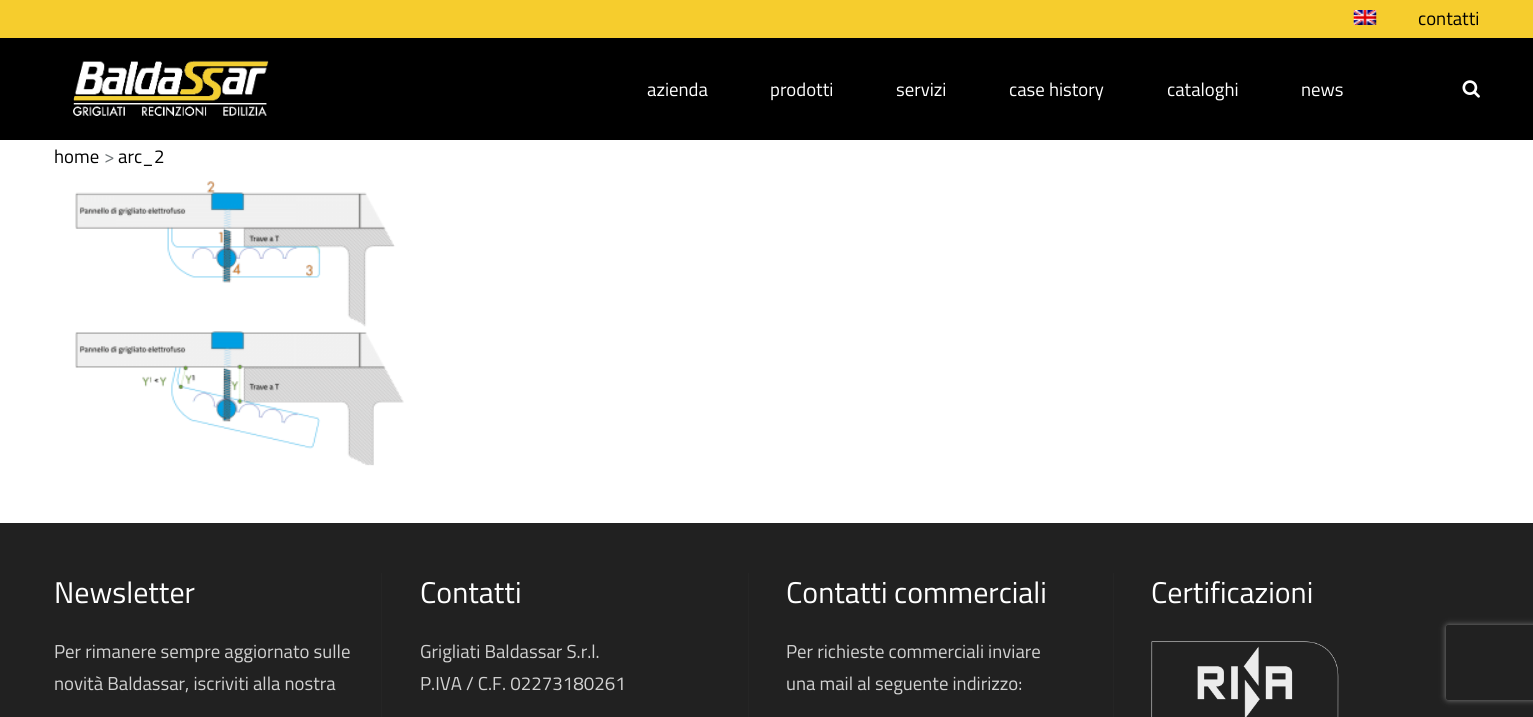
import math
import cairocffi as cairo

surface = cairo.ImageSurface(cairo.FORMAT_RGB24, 1533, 717)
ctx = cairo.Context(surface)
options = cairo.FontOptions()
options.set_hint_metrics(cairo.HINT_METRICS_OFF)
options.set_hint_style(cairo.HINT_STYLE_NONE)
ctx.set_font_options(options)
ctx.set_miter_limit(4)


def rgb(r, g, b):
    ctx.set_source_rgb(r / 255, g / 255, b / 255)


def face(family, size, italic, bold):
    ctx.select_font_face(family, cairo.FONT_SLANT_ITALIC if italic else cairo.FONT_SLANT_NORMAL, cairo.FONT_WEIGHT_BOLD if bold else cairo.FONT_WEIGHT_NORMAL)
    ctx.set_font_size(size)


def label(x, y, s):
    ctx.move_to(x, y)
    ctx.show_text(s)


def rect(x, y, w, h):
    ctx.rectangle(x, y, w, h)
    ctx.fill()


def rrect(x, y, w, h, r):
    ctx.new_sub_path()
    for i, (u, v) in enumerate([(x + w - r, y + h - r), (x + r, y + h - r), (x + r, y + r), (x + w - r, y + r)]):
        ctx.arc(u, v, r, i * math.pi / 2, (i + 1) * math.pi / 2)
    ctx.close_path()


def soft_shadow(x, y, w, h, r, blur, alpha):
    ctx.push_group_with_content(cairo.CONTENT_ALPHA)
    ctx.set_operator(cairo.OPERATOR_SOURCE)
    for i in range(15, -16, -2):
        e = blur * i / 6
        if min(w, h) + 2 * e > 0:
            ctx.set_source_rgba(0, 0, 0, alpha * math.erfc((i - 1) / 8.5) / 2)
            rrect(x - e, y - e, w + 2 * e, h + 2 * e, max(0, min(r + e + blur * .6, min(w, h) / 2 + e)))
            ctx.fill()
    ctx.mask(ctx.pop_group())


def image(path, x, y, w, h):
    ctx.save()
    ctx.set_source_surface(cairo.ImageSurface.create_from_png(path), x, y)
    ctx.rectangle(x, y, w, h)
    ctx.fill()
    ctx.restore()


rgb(255, 255, 255)
ctx.paint()
rgb(246, 205, 45)
rect(0, 0, 1533, 38)
image('image0.png', 1353, 10, 24, 15)
face('Titillium Web', 18.75, 0, 0)
rgb(0, 0, 0)
label(1418, 25, 'contatti')
rect(0, 38, 1533, 102)
image('image1.png', 73, 60, 196, 57)
rgb(255, 255, 255)
label(647, 96, 'azienda')
label(770, 96, 'prodotti')
label(896, 96, 'servizi')
label(1009, 96, 'case history')
label(1167, 96, 'cataloghi')
label(1301, 96, 'news')
image('image2.png', 1462, 80, 18, 18)
rgb(0, 0, 0)
label(54, 163, 'home')
rgb(114, 120, 123)
label(104, 163, '>')
rgb(0, 0, 0)
label(118, 163, 'arc_2')
image('image3.png', 75, 181, 329, 285)
rgb(33, 33, 33)
rect(0, 523, 1533, 194)
rgb(37, 37, 37)
rect(381, 573, 1, 144)
face('Titillium Web', 30, 0, 0)
rgb(255, 255, 255)
label(54, 603, 'Newsletter')
face('Titillium Web', 18.75, 0, 0)
rgb(209, 209, 209)
label(54, 658, 'Per rimanere sempre aggiornato sulle')
label(54, 690, 'novità Baldassar, iscriviti alla nostra')
rgb(37, 37, 37)
rect(748, 573, 1, 144)
face('Titillium Web', 30, 0, 0)
rgb(255, 255, 255)
label(420, 603, 'Contatti')
face('Titillium Web', 18.75, 0, 0)
rgb(209, 209, 209)
label(420, 658, 'Grigliati Baldassar S.r.l.')
label(420, 690, 'P.IVA / C.F. 02273180261')
rgb(37, 37, 37)
rect(1113, 573, 1, 144)
face('Titillium Web', 30, 0, 0)
rgb(255, 255, 255)
label(786, 603, 'Contatti commerciali')
face('Titillium Web', 18.75, 0, 0)
rgb(209, 209, 209)
label(786, 658, 'Per richieste commerciali inviare')
label(786, 690, 'una mail al seguente indirizzo:')
face('Titillium Web', 30, 0, 0)
rgb(255, 255, 255)
label(1151, 603, 'Certificazioni')
image('image4.png', 1151, 641, 188, 76)
ctx.save()
ctx.set_fill_rule(cairo.FILL_RULE_EVEN_ODD)
ctx.new_path()
ctx.move_to(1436, 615)
ctx.line_to(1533, 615)
ctx.line_to(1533, 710)
ctx.line_to(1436, 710)
ctx.close_path()
ctx.move_to(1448.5, 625)
ctx.line_to(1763.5, 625)
ctx.curve_to(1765, 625, 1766, 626, 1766, 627.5)
ctx.line_to(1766, 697.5)
ctx.curve_to(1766, 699, 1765, 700, 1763.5, 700)
ctx.line_to(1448.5, 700)
ctx.curve_to(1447, 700, 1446, 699, 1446, 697.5)
ctx.line_to(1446, 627.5)
ctx.curve_to(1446, 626, 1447, 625, 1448.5, 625)
ctx.close_path()
ctx.clip()
rgb(128, 128, 128)
soft_shadow(1446, 625, 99, 75, 2.5, 3, 1)
ctx.restore()
surface.write_to_png('render.png')
